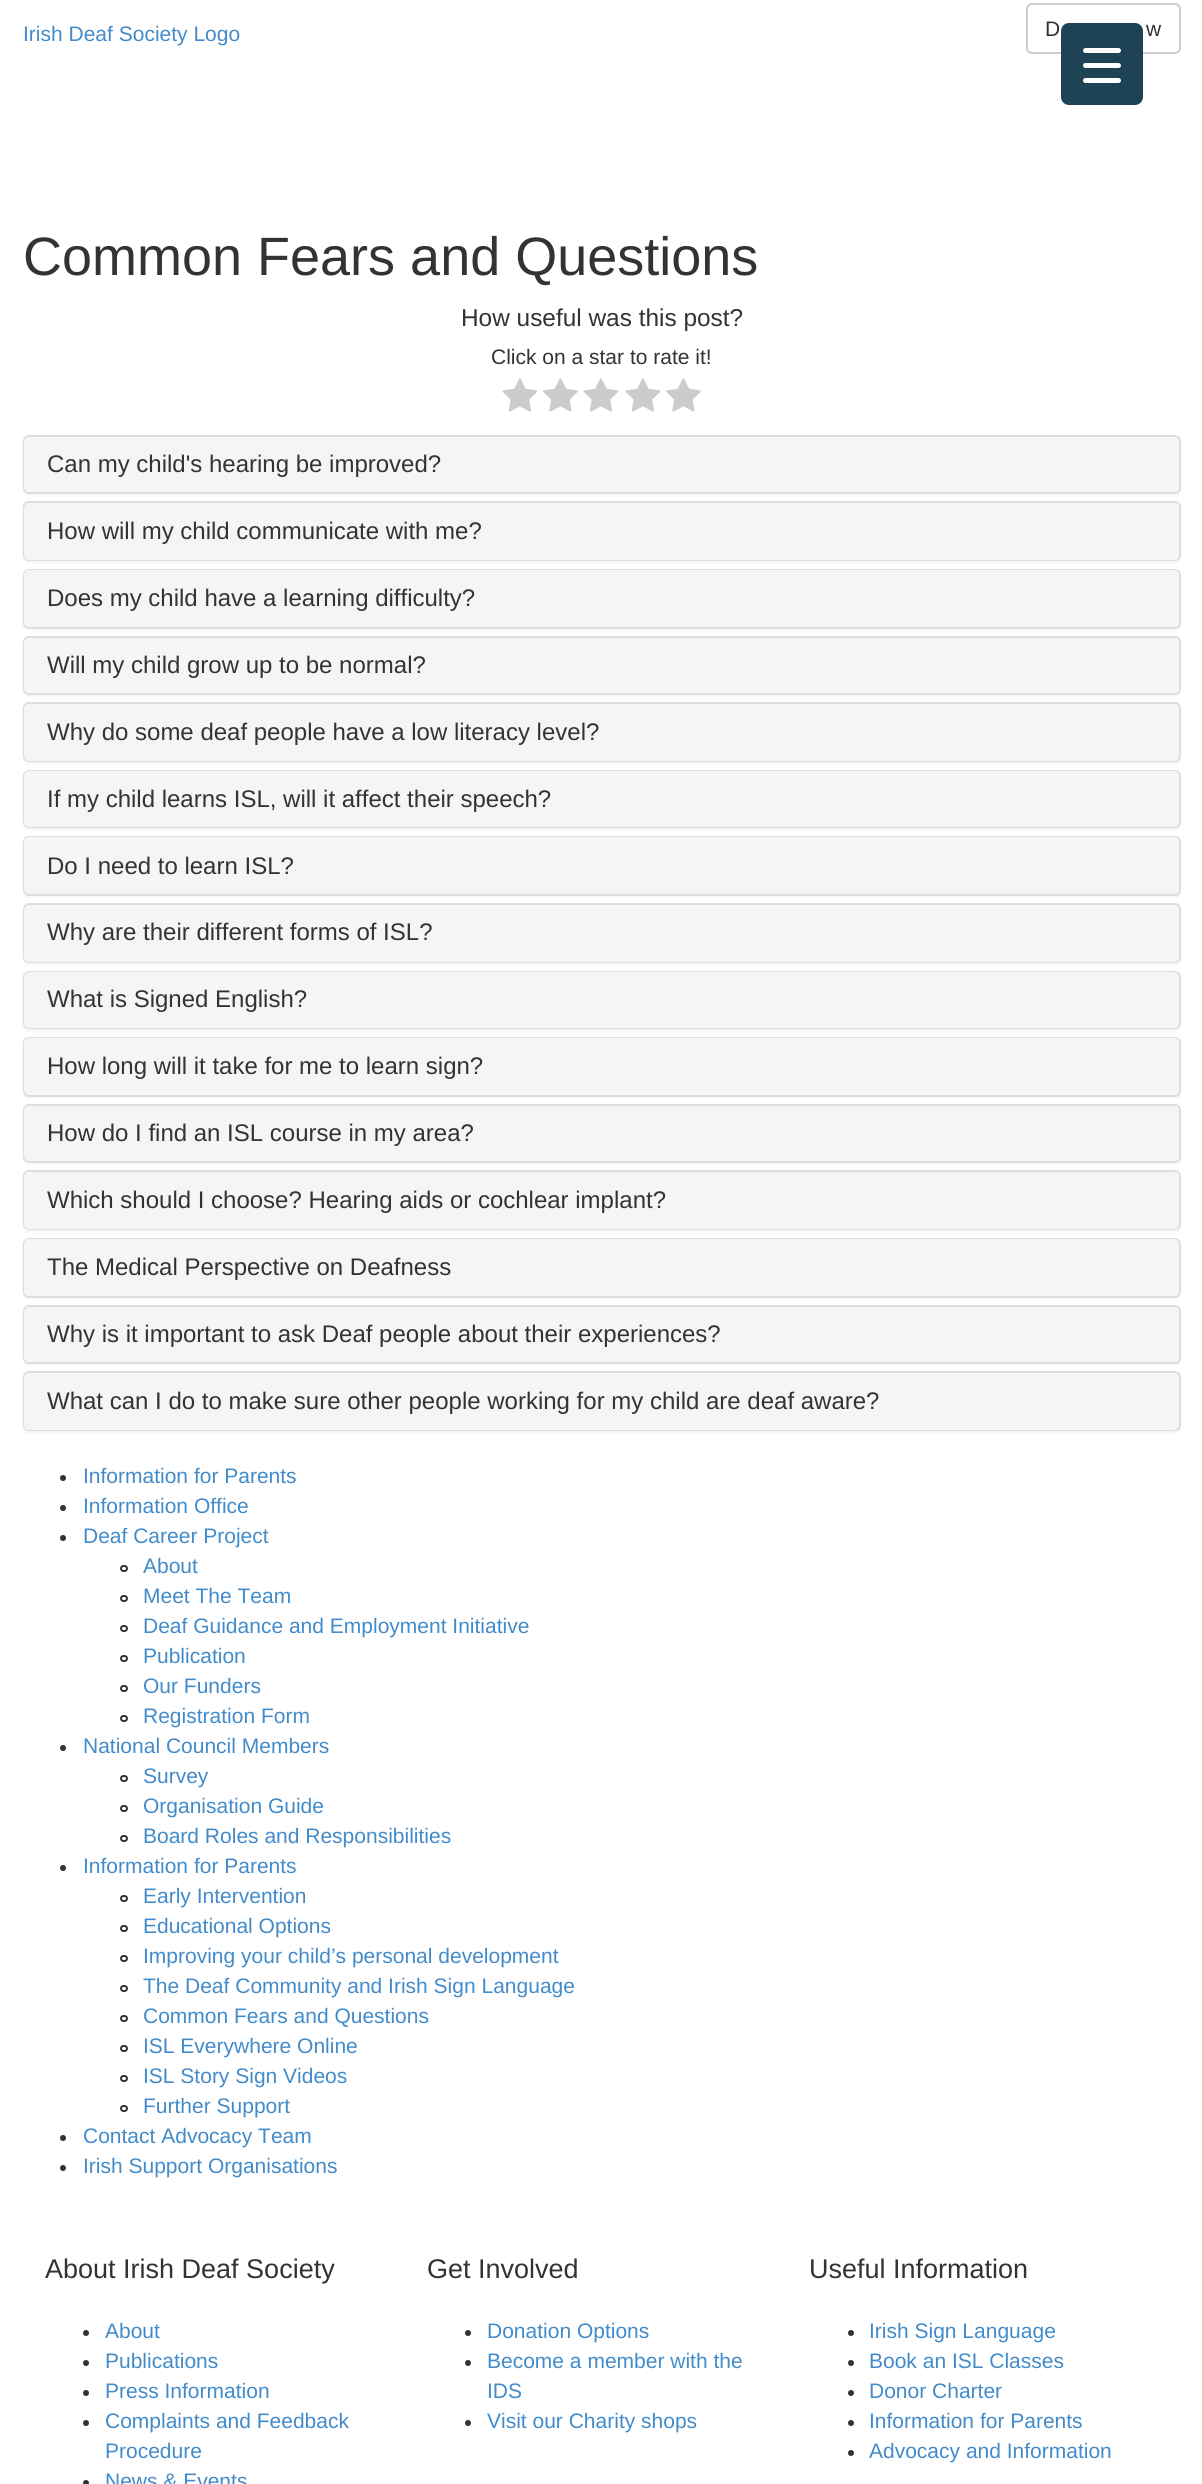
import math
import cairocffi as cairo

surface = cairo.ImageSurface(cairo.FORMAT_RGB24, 1202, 2484)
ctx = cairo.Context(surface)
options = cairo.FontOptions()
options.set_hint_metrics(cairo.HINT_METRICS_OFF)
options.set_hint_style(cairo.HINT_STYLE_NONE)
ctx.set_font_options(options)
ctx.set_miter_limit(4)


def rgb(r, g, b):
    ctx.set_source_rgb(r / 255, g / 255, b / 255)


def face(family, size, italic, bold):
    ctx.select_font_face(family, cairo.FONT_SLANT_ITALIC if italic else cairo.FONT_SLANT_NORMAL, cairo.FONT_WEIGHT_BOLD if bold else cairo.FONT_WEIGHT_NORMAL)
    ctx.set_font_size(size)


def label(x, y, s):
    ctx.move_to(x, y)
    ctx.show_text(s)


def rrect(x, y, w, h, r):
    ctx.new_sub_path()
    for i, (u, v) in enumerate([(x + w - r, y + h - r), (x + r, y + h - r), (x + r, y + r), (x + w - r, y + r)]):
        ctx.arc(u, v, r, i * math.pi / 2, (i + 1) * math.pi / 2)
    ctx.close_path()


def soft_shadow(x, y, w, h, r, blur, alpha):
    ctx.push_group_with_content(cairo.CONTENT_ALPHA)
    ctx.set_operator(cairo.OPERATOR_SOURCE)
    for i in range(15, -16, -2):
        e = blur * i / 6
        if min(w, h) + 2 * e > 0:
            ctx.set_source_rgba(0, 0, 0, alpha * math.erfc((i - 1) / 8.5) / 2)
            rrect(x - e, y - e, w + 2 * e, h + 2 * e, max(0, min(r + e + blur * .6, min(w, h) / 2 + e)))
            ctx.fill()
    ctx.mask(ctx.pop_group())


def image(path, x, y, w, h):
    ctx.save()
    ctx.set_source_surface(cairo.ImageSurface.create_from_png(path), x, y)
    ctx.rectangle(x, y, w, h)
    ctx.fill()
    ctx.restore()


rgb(255, 255, 255)
ctx.paint()
face('Liberation Sans', 21, 0, 0)
rgb(66, 139, 202)
label(23, 41, 'Irish Deaf Society Logo')
rrect(1027, 4, 153, 49, 5)
rgb(204, 204, 204)
ctx.stroke()
rgb(51, 51, 51)
label(1045, 36, 'D')
label(1146, 36, 'w')
rgb(29, 67, 84)
rrect(1061, 23, 82, 82, 8)
ctx.fill()
rgb(255, 255, 255)
rrect(1083, 63, 38, 5, 2.5)
ctx.fill()
rrect(1083, 48, 38, 5, 2.5)
ctx.fill()
rrect(1083, 78, 38, 5, 2.5)
ctx.fill()
face('Liberation Sans', 54, 0, 0)
rgb(51, 51, 51)
label(23, 275, 'Common Fears and Questions')
face('Liberation Sans', 24.4, 0, 0)
label(461, 326, 'How useful was this post?')
face('Liberation Sans', 21, 0, 0)
label(491, 364, 'Click on a star to rate it!')
image('image0.png', 502, 378, 36, 34)
image('image1.png', 543, 378, 35, 34)
image('image0.png', 583, 378, 36, 34)
image('image0.png', 625, 378, 36, 34)
image('image1.png', 666, 378, 35, 34)
rgb(0, 0, 0)
soft_shadow(23, 437, 1158, 58, 6, 1, 0.05)
rgb(255, 255, 255)
rrect(24, 436, 1156, 57, 5)
ctx.fill_preserve()
rgb(221, 221, 221)
ctx.stroke()
rgb(245, 245, 245)
rrect(24, 437, 1155, 55, 5)
ctx.fill()
face('Liberation Sans', 24, 0, 0)
rgb(51, 51, 51)
label(47, 472, 'Can my child\'s hearing be improved?')
rgb(0, 0, 0)
soft_shadow(23, 503, 1158, 60, 6, 1, 0.05)
rgb(255, 255, 255)
rrect(24, 502, 1156, 58, 5)
ctx.fill_preserve()
rgb(221, 221, 221)
ctx.stroke()
rgb(245, 245, 245)
rrect(24, 503, 1155, 57, 5)
ctx.fill()
rgb(51, 51, 51)
label(47, 539, 'How will my child communicate with me?')
rgb(0, 0, 0)
soft_shadow(23, 570, 1158, 60, 6, 1, 0.05)
rgb(255, 255, 255)
rrect(24, 570, 1156, 58, 5)
ctx.fill_preserve()
rgb(221, 221, 221)
ctx.stroke()
rgb(245, 245, 245)
rrect(24, 570, 1155, 57, 5)
ctx.fill()
rgb(51, 51, 51)
label(47, 606, 'Does my child have a learning difficulty?')
rgb(0, 0, 0)
soft_shadow(23, 638, 1158, 58, 6, 1, 0.05)
rgb(255, 255, 255)
rrect(24, 637, 1156, 57, 5)
ctx.fill_preserve()
rgb(221, 221, 221)
ctx.stroke()
rgb(245, 245, 245)
rrect(24, 638, 1155, 55, 5)
ctx.fill()
rgb(51, 51, 51)
label(47, 673, 'Will my child grow up to be normal?')
rgb(0, 0, 0)
soft_shadow(23, 704, 1158, 60, 6, 1, 0.05)
rgb(255, 255, 255)
rrect(24, 703, 1156, 58, 5)
ctx.fill_preserve()
rgb(221, 221, 221)
ctx.stroke()
rgb(245, 245, 245)
rrect(24, 704, 1155, 57, 5)
ctx.fill()
rgb(51, 51, 51)
label(47, 740, 'Why do some deaf people have a low literacy level?')
rgb(0, 0, 0)
soft_shadow(23, 771, 1158, 59, 6, 1, 0.05)
rrect(24, 771, 1156, 56, 5)
rgb(221, 221, 221)
ctx.stroke()
rgb(245, 245, 245)
rrect(24, 771, 1155, 56, 5)
ctx.fill()
rgb(51, 51, 51)
label(47, 807, 'If my child learns ISL, will it affect their speech?')
rgb(0, 0, 0)
soft_shadow(23, 837, 1158, 60, 6, 1, 0.05)
rgb(255, 255, 255)
rrect(24, 837, 1156, 58, 5)
ctx.fill_preserve()
rgb(221, 221, 221)
ctx.stroke()
rgb(245, 245, 245)
rrect(24, 837, 1155, 57, 5)
ctx.fill()
rgb(51, 51, 51)
label(47, 874, 'Do I need to learn ISL?')
rgb(0, 0, 0)
soft_shadow(23, 905, 1158, 60, 6, 1, 0.05)
rgb(255, 255, 255)
rrect(24, 904, 1156, 58, 5)
ctx.fill_preserve()
rgb(221, 221, 221)
ctx.stroke()
rgb(245, 245, 245)
rrect(24, 905, 1155, 57, 5)
ctx.fill()
rgb(51, 51, 51)
label(47, 940, 'Why are their different forms of ISL?')
rgb(0, 0, 0)
soft_shadow(23, 972, 1158, 59, 6, 1, 0.05)
rrect(24, 972, 1156, 56, 5)
rgb(221, 221, 221)
ctx.stroke()
rgb(245, 245, 245)
rrect(24, 972, 1155, 56, 5)
ctx.fill()
rgb(51, 51, 51)
label(47, 1007, 'What is Signed English?')
rgb(0, 0, 0)
soft_shadow(23, 1038, 1158, 60, 6, 1, 0.05)
rgb(255, 255, 255)
rrect(24, 1038, 1156, 58, 5)
ctx.fill_preserve()
rgb(221, 221, 221)
ctx.stroke()
rgb(245, 245, 245)
rrect(24, 1038, 1155, 57, 5)
ctx.fill()
rgb(51, 51, 51)
label(47, 1074, 'How long will it take for me to learn sign?')
rgb(0, 0, 0)
soft_shadow(23, 1106, 1158, 58, 6, 1, 0.05)
rgb(255, 255, 255)
rrect(24, 1105, 1156, 57, 5)
ctx.fill_preserve()
rgb(221, 221, 221)
ctx.stroke()
rgb(245, 245, 245)
rrect(24, 1106, 1155, 55, 5)
ctx.fill()
rgb(51, 51, 51)
label(47, 1141, 'How do I find an ISL course in my area?')
rgb(0, 0, 0)
soft_shadow(23, 1172, 1158, 60, 6, 1, 0.05)
rgb(255, 255, 255)
rrect(24, 1171, 1156, 58, 5)
ctx.fill_preserve()
rgb(221, 221, 221)
ctx.stroke()
rgb(245, 245, 245)
rrect(24, 1172, 1155, 57, 5)
ctx.fill()
rgb(51, 51, 51)
label(47, 1208, 'Which should I choose? Hearing aids or cochlear implant?')
rgb(0, 0, 0)
soft_shadow(23, 1239, 1158, 60, 6, 1, 0.05)
rgb(255, 255, 255)
rrect(24, 1239, 1156, 58, 5)
ctx.fill_preserve()
rgb(221, 221, 221)
ctx.stroke()
rgb(245, 245, 245)
rrect(24, 1239, 1155, 57, 5)
ctx.fill()
rgb(51, 51, 51)
label(47, 1275, 'The Medical Perspective on Deafness')
rgb(0, 0, 0)
soft_shadow(23, 1307, 1158, 58, 6, 1, 0.05)
rgb(255, 255, 255)
rrect(24, 1306, 1156, 57, 5)
ctx.fill_preserve()
rgb(221, 221, 221)
ctx.stroke()
rgb(245, 245, 245)
rrect(24, 1307, 1155, 55, 5)
ctx.fill()
rgb(51, 51, 51)
label(47, 1342, 'Why is it important to ask Deaf people about their experiences?')
rgb(0, 0, 0)
soft_shadow(23, 1373, 1158, 60, 6, 1, 0.05)
rgb(255, 255, 255)
rrect(24, 1372, 1156, 58, 5)
ctx.fill_preserve()
rgb(221, 221, 221)
ctx.stroke()
rgb(245, 245, 245)
rrect(24, 1373, 1155, 57, 5)
ctx.fill()
rgb(51, 51, 51)
label(47, 1409, 'What can I do to make sure other people working for my child are deaf aware?')
ctx.new_path()
ctx.arc(63, 1478, 3, 0, 2 * math.pi)
ctx.fill()
face('Liberation Sans', 21, 0, 0)
rgb(66, 139, 202)
label(83, 1483, 'Information for Parents')
rgb(51, 51, 51)
ctx.new_path()
ctx.arc(63, 1508, 3, 0, 2 * math.pi)
ctx.fill()
rgb(66, 139, 202)
label(83, 1513, 'Information Office')
rgb(51, 51, 51)
ctx.new_path()
ctx.arc(63, 1538, 3, 0, 2 * math.pi)
ctx.fill()
rgb(66, 139, 202)
label(83, 1543, 'Deaf Career Project')
rrect(121, 1566, 6, 5, 2.5)
rgb(51, 51, 51)
ctx.stroke()
rgb(66, 139, 202)
label(143, 1573, 'About')
rrect(121, 1596, 6, 5, 2.5)
rgb(51, 51, 51)
ctx.stroke()
rgb(66, 139, 202)
label(143, 1603, 'Meet The Team')
rrect(121, 1626, 6, 5, 2.5)
rgb(51, 51, 51)
ctx.stroke()
rgb(66, 139, 202)
label(143, 1633, 'Deaf Guidance and Employment Initiative')
rrect(121, 1656, 6, 5, 2.5)
rgb(51, 51, 51)
ctx.stroke()
rgb(66, 139, 202)
label(143, 1663, 'Publication')
rrect(121, 1686, 6, 5, 2.5)
rgb(51, 51, 51)
ctx.stroke()
rgb(66, 139, 202)
label(143, 1693, 'Our Funders')
rrect(121, 1716, 6, 5, 2.5)
rgb(51, 51, 51)
ctx.stroke()
rgb(66, 139, 202)
label(143, 1723, 'Registration Form')
rgb(51, 51, 51)
ctx.new_path()
ctx.arc(63, 1748, 3, 0, 2 * math.pi)
ctx.fill()
rgb(66, 139, 202)
label(83, 1753, 'National Council Members')
rrect(121, 1776, 6, 5, 2.5)
rgb(51, 51, 51)
ctx.stroke()
rgb(66, 139, 202)
label(143, 1783, 'Survey')
rrect(121, 1806, 6, 5, 2.5)
rgb(51, 51, 51)
ctx.stroke()
rgb(66, 139, 202)
label(143, 1813, 'Organisation Guide')
rrect(121, 1836, 6, 5, 2.5)
rgb(51, 51, 51)
ctx.stroke()
rgb(66, 139, 202)
label(143, 1843, 'Board Roles and Responsibilities')
rgb(51, 51, 51)
ctx.new_path()
ctx.arc(63, 1868, 3, 0, 2 * math.pi)
ctx.fill()
rgb(66, 139, 202)
label(83, 1873, 'Information for Parents')
rrect(121, 1896, 6, 5, 2.5)
rgb(51, 51, 51)
ctx.stroke()
rgb(66, 139, 202)
label(143, 1903, 'Early Intervention')
rrect(121, 1926, 6, 5, 2.5)
rgb(51, 51, 51)
ctx.stroke()
rgb(66, 139, 202)
label(143, 1933, 'Educational Options')
rrect(121, 1956, 6, 5, 2.5)
rgb(51, 51, 51)
ctx.stroke()
rgb(66, 139, 202)
label(143, 1963, 'Improving your child’s personal development')
rrect(121, 1986, 6, 5, 2.5)
rgb(51, 51, 51)
ctx.stroke()
rgb(66, 139, 202)
label(143, 1993, 'The Deaf Community and Irish Sign Language')
rrect(121, 2016, 6, 5, 2.5)
rgb(51, 51, 51)
ctx.stroke()
rgb(66, 139, 202)
label(143, 2023, 'Common Fears and Questions')
rrect(121, 2046, 6, 5, 2.5)
rgb(51, 51, 51)
ctx.stroke()
rgb(66, 139, 202)
label(143, 2053, 'ISL Everywhere Online')
rrect(121, 2076, 6, 5, 2.5)
rgb(51, 51, 51)
ctx.stroke()
rgb(66, 139, 202)
label(143, 2083, 'ISL Story Sign Videos')
rrect(121, 2106, 6, 5, 2.5)
rgb(51, 51, 51)
ctx.stroke()
rgb(66, 139, 202)
label(143, 2113, 'Further Support')
rgb(51, 51, 51)
ctx.new_path()
ctx.arc(63, 2138, 3, 0, 2 * math.pi)
ctx.fill()
rgb(66, 139, 202)
label(83, 2143, 'Contact Advocacy Team')
rgb(51, 51, 51)
ctx.new_path()
ctx.arc(63, 2168, 3, 0, 2 * math.pi)
ctx.fill()
rgb(66, 139, 202)
label(83, 2173, 'Irish Support Organisations')
face('Liberation Sans', 27, 0, 0)
rgb(51, 51, 51)
label(45, 2278, 'About Irish Deaf Society')
ctx.new_path()
ctx.arc(86, 2333, 3, 0, 2 * math.pi)
ctx.fill()
face('Liberation Sans', 21, 0, 0)
rgb(66, 139, 202)
label(105, 2338, 'About')
rgb(51, 51, 51)
ctx.new_path()
ctx.arc(86, 2363, 3, 0, 2 * math.pi)
ctx.fill()
rgb(66, 139, 202)
label(105, 2368, 'Publications')
rgb(51, 51, 51)
ctx.new_path()
ctx.arc(86, 2393, 3, 0, 2 * math.pi)
ctx.fill()
rgb(66, 139, 202)
label(105, 2398, 'Press Information')
rgb(51, 51, 51)
ctx.new_path()
ctx.arc(86, 2423, 3, 0, 2 * math.pi)
ctx.fill()
rgb(66, 139, 202)
label(105, 2428, 'Complaints and Feedback')
label(105, 2458, 'Procedure')
rgb(51, 51, 51)
ctx.new_path()
ctx.arc(86, 2483, 3, 0, 2 * math.pi)
ctx.fill()
rgb(66, 139, 202)
label(105, 2488, 'News & Events')
face('Liberation Sans', 27, 0, 0)
rgb(51, 51, 51)
label(427, 2278, 'Get Involved')
ctx.new_path()
ctx.arc(468, 2333, 3, 0, 2 * math.pi)
ctx.fill()
face('Liberation Sans', 21, 0, 0)
rgb(66, 139, 202)
label(487, 2338, 'Donation Options')
rgb(51, 51, 51)
ctx.new_path()
ctx.arc(468, 2363, 3, 0, 2 * math.pi)
ctx.fill()
rgb(66, 139, 202)
label(487, 2368, 'Become a member with the')
label(487, 2398, 'IDS')
rgb(51, 51, 51)
ctx.new_path()
ctx.arc(468, 2423, 3, 0, 2 * math.pi)
ctx.fill()
rgb(66, 139, 202)
label(487, 2428, 'Visit our Charity shops')
face('Liberation Sans', 27, 0, 0)
rgb(51, 51, 51)
label(809, 2278, 'Useful Information')
ctx.new_path()
ctx.arc(851, 2333, 3, 0, 2 * math.pi)
ctx.fill()
face('Liberation Sans', 21, 0, 0)
rgb(66, 139, 202)
label(869, 2338, 'Irish Sign Language')
rgb(51, 51, 51)
ctx.new_path()
ctx.arc(851, 2363, 3, 0, 2 * math.pi)
ctx.fill()
rgb(66, 139, 202)
label(869, 2368, 'Book an ISL Classes')
rgb(51, 51, 51)
ctx.new_path()
ctx.arc(851, 2393, 3, 0, 2 * math.pi)
ctx.fill()
rgb(66, 139, 202)
label(869, 2398, 'Donor Charter')
rgb(51, 51, 51)
ctx.new_path()
ctx.arc(851, 2423, 3, 0, 2 * math.pi)
ctx.fill()
rgb(66, 139, 202)
label(869, 2428, 'Information for Parents')
rgb(51, 51, 51)
ctx.new_path()
ctx.arc(851, 2453, 3, 0, 2 * math.pi)
ctx.fill()
rgb(66, 139, 202)
label(869, 2458, 'Advocacy and Information')
surface.write_to_png('render.png')
